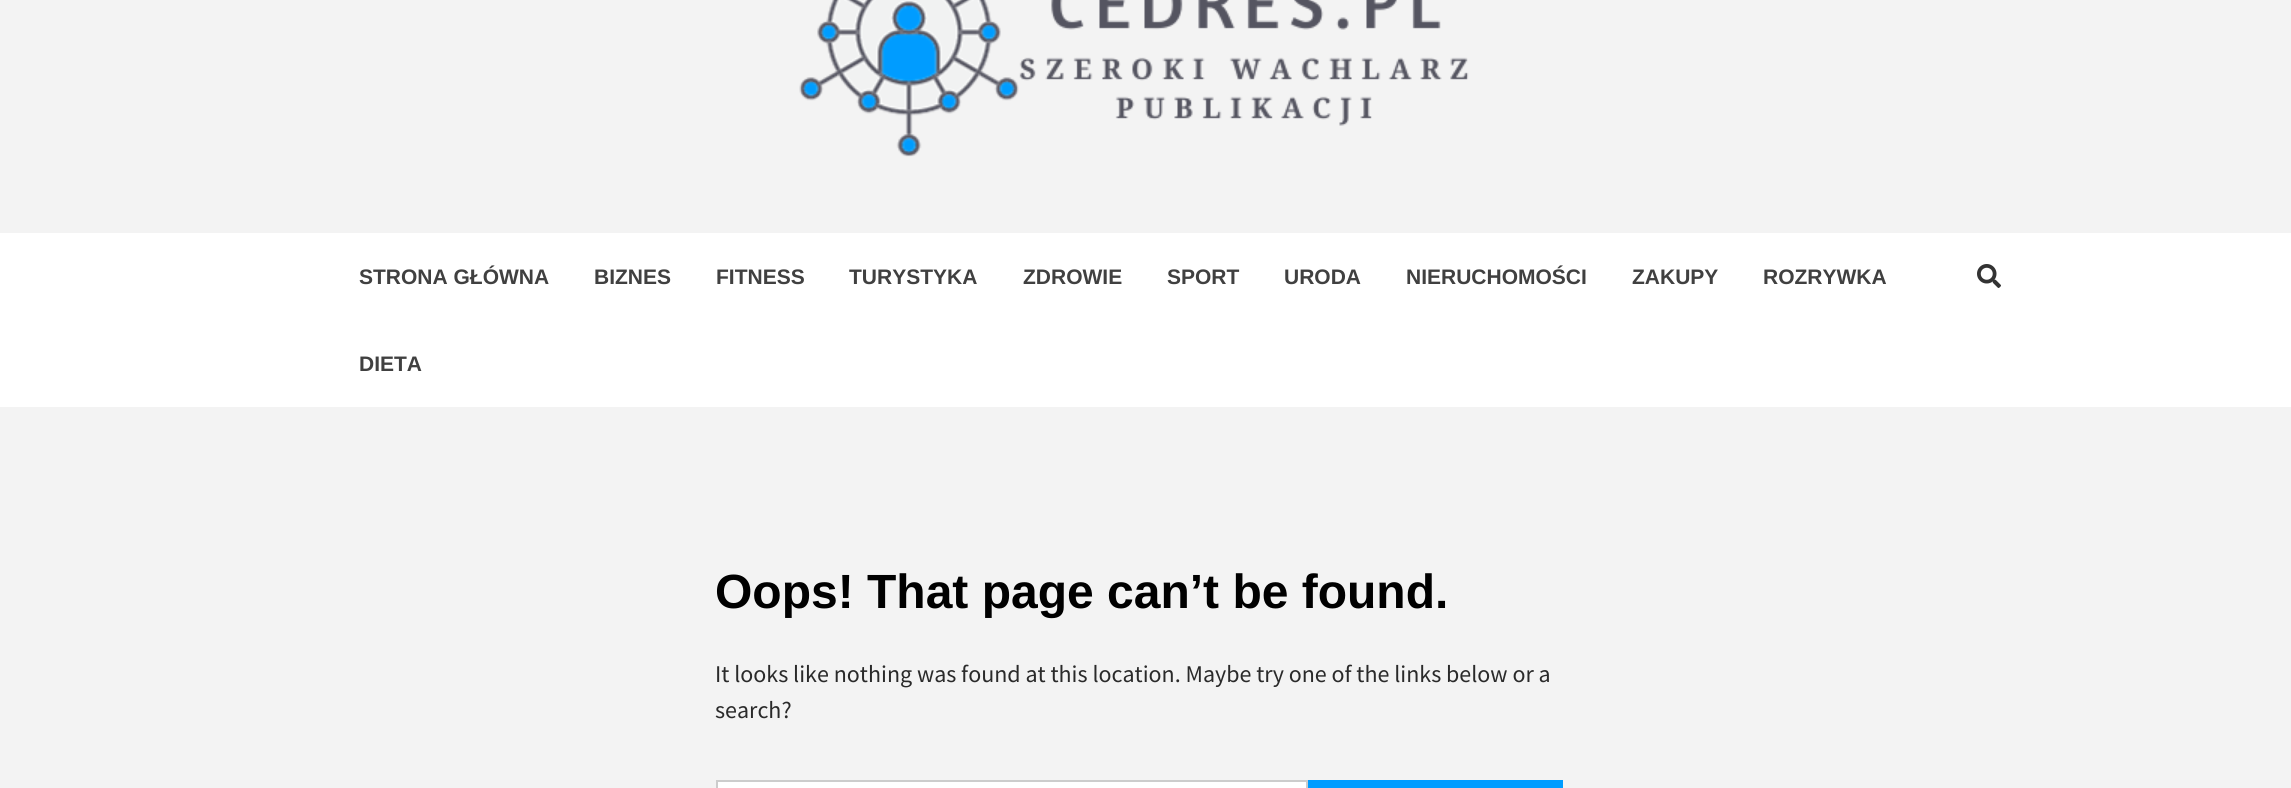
import math
import cairocffi as cairo

surface = cairo.ImageSurface(cairo.FORMAT_RGB24, 2291, 788)
ctx = cairo.Context(surface)
options = cairo.FontOptions()
options.set_hint_metrics(cairo.HINT_METRICS_OFF)
options.set_hint_style(cairo.HINT_STYLE_NONE)
ctx.set_font_options(options)
ctx.set_miter_limit(4)


def rgb(r, g, b):
    ctx.set_source_rgb(r / 255, g / 255, b / 255)


def face(family, size, italic, bold):
    ctx.select_font_face(family, cairo.FONT_SLANT_ITALIC if italic else cairo.FONT_SLANT_NORMAL, cairo.FONT_WEIGHT_BOLD if bold else cairo.FONT_WEIGHT_NORMAL)
    ctx.set_font_size(size)


def label(x, y, s):
    ctx.move_to(x, y)
    ctx.show_text(s)


def rect(x, y, w, h):
    ctx.rectangle(x, y, w, h)
    ctx.fill()


def image(path, x, y, w, h):
    ctx.save()
    ctx.set_source_surface(cairo.ImageSurface.create_from_png(path), x, y)
    ctx.rectangle(x, y, w, h)
    ctx.fill()
    ctx.restore()


rgb(243, 243, 243)
ctx.paint()
image('image0.png', 799, 0, 670, 157)
rgb(255, 255, 255)
rect(0, 233, 2291, 174)
face('Liberation Sans', 21, 0, 1)
rgb(64, 64, 64)
label(359, 284, 'STRONA GŁÓWNA')
label(594, 284, 'BIZNES')
label(716, 284, 'FITNESS')
label(849, 284, 'TURYSTYKA')
label(1023, 284, 'ZDROWIE')
label(1167, 284, 'SPORT')
label(1284, 284, 'URODA')
label(1406, 284, 'NIERUCHOMOŚCI')
label(1632, 284, 'ZAKUPY')
label(1763, 284, 'ROZRYWKA')
label(359, 371, 'DIETA')
image('image1.png', 1977, 264, 24, 24)
face('Liberation Sans', 48, 0, 1)
rgb(0, 0, 0)
label(715, 608, 'Oops! That page can’t be found.')
face('Source Sans Pro', 24, 0, 0)
rgb(42, 42, 42)
label(715, 682, 'It looks like nothing was found at this location. Maybe try one of the links below or a')
label(715, 718, 'search?')
rgb(255, 255, 255)
ctx.rectangle(717, 781, 590, 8)
ctx.fill_preserve()
rgb(204, 204, 204)
ctx.stroke()
rgb(0, 156, 255)
rect(1308, 780, 255, 8)
surface.write_to_png('render.png')
